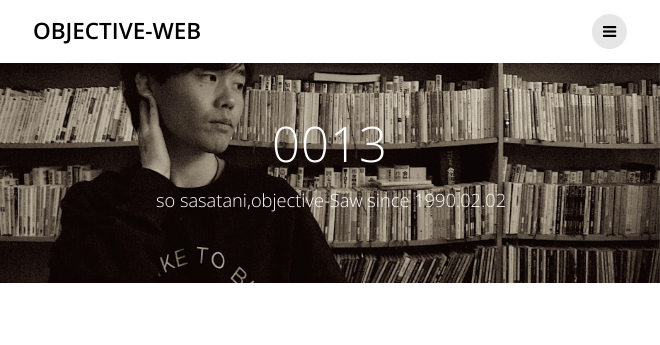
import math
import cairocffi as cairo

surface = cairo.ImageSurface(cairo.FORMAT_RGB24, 660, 345)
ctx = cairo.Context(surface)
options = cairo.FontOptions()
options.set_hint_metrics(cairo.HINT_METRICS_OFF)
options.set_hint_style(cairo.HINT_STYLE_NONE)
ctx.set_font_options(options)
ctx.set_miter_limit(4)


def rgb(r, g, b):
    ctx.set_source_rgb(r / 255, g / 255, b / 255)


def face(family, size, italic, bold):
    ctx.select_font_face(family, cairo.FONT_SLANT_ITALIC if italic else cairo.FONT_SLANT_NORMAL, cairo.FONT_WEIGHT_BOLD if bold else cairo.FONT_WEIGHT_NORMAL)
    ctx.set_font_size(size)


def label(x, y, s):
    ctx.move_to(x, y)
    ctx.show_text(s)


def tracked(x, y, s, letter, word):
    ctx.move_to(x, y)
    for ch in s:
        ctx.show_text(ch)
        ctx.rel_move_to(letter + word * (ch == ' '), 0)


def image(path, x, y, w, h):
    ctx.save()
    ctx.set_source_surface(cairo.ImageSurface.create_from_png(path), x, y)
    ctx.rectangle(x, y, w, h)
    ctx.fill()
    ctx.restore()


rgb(255, 255, 255)
ctx.paint()
face('Open Sans SemiBold', 22.5, 0, 0)
rgb(0, 0, 0)
label(33, 39, 'OBJECTIVE-WEB')
rgb(230, 230, 230)
ctx.new_path()
ctx.arc(609.5, 31.5, 17.5, 0, 2 * math.pi)
ctx.fill()
image('image0.png', 603, 26, 14, 11)
image('image1.png', 0, 63, 660, 220)
face('Open Sans Light', 49, 0, 0)
rgb(255, 255, 255)
tracked(272, 162, '0013', 1, 0)
face('Open Sans Light', 18.25, 0, 0)
label(156, 207, 'so sasatani,objective-Saw since 1990.02.02')
surface.write_to_png('render.png')
